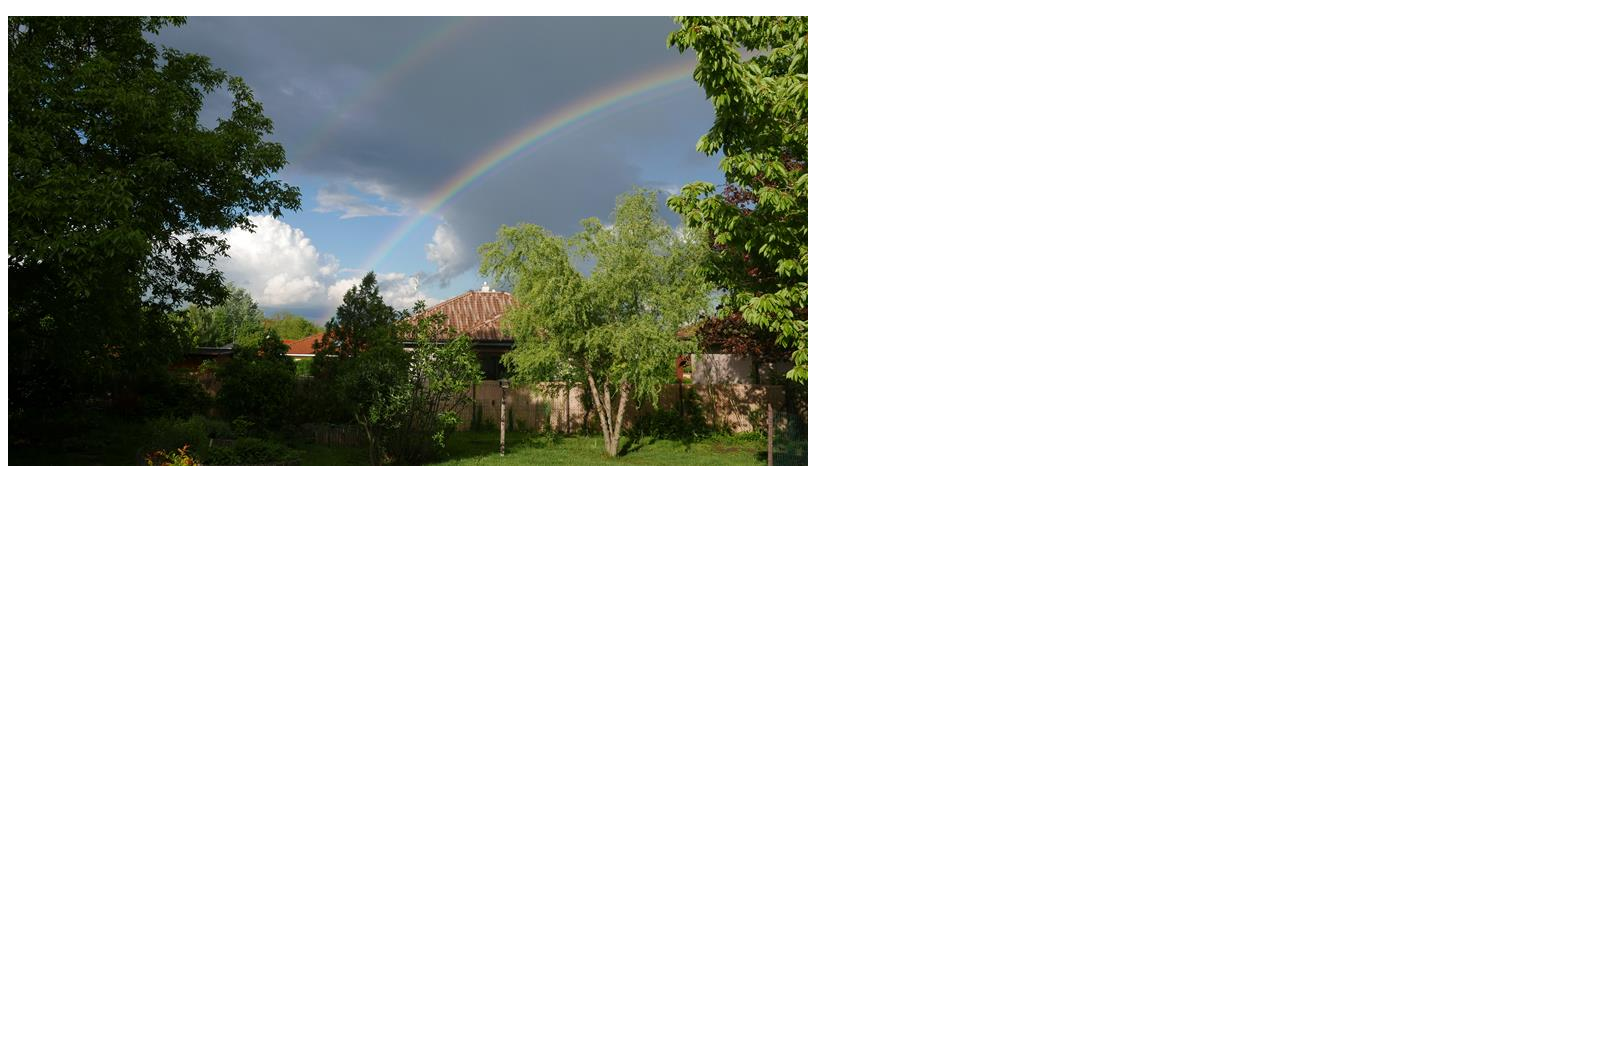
import math
import cairocffi as cairo

surface = cairo.ImageSurface(cairo.FORMAT_RGB24, 1616, 1060)
ctx = cairo.Context(surface)
options = cairo.FontOptions()
options.set_hint_metrics(cairo.HINT_METRICS_OFF)
options.set_hint_style(cairo.HINT_STYLE_NONE)
ctx.set_font_options(options)
ctx.set_miter_limit(4)


def rgb(r, g, b):
    ctx.set_source_rgb(r / 255, g / 255, b / 255)


def image(path, x, y, w, h):
    ctx.save()
    ctx.set_source_surface(cairo.ImageSurface.create_from_png(path), x, y)
    ctx.rectangle(x, y, w, h)
    ctx.fill()
    ctx.restore()


rgb(255, 255, 255)
ctx.paint()
image('image0.png', 8, 16, 800, 450)
surface.write_to_png('render.png')
